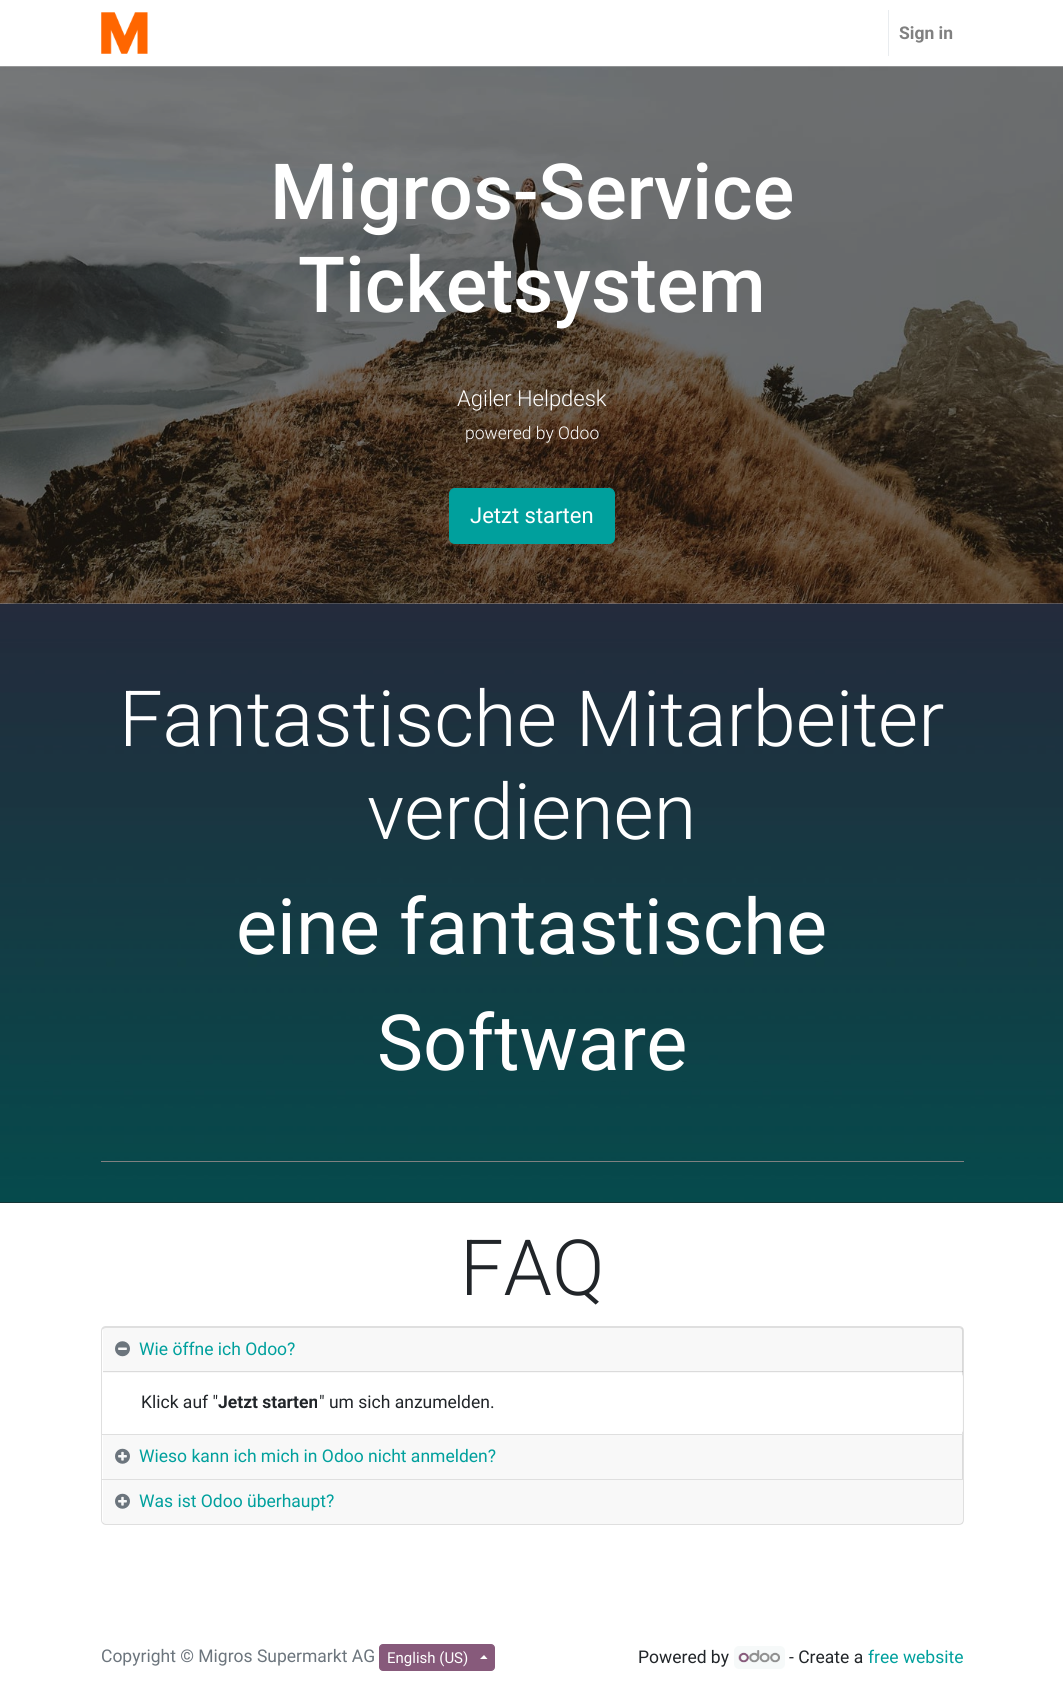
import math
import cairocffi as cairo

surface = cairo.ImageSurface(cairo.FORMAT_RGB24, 1063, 1701)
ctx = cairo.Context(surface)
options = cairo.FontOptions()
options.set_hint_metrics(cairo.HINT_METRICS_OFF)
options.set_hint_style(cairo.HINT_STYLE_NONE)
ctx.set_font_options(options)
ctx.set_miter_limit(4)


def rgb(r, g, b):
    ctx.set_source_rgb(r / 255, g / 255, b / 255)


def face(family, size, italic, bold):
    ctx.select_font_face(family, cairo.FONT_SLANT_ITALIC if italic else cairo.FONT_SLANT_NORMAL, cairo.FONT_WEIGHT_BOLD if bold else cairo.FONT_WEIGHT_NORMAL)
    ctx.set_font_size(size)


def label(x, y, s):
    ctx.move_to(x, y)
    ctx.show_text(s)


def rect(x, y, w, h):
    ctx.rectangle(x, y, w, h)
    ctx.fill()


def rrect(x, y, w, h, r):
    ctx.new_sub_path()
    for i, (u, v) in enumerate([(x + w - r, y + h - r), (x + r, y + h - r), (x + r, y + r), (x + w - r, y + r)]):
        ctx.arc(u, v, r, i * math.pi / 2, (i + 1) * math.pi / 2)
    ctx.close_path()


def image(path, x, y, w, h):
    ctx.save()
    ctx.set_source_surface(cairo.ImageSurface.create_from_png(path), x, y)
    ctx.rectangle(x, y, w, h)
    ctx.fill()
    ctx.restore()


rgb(255, 255, 255)
ctx.paint()
image('image0.png', 101, 12, 47, 42)
rgb(233, 236, 239)
rect(888, 10, 1, 46)
face('Roboto', 17.5, 0, 1)
rgb(128, 128, 128)
label(899, 39, 'Sign in')
image('image1.png', 0, 66, 1063, 538)
face('Roboto Medium', 77.5, 0, 0)
rgb(255, 255, 255)
label(270, 219, 'Migros-Service')
label(298, 312, 'Ticketsystem')
face('Roboto Light', 22, 0, 0)
label(457, 406, 'Agiler Helpdesk')
face('Roboto Light', 17.5, 0, 0)
label(465, 439, 'powered by Odoo')
rgb(0, 160, 157)
rrect(449.5, 488.5, 165, 55, 5.5)
ctx.fill_preserve()
ctx.set_line_width(1)
ctx.stroke()
face('Roboto', 22, 0, 0)
rgb(255, 255, 255)
label(470, 523, 'Jetzt starten')
rgb(32, 32, 32)
rect(0, 1202, 1063, 1)
image('image2.png', 0, 603, 1063, 600)
face('Roboto Light', 77.5, 0, 0)
rgb(255, 255, 255)
label(119, 746, 'Fantastische Mitarbeiter')
label(367, 839, 'verdienen')
face('Roboto', 77.5, 0, 0)
label(236, 954, 'eine fantastische')
label(377, 1070, 'Software')
rgb(128, 128, 128)
rect(101, 1161, 863, 1)
face('Roboto Light', 77.5, 0, 0)
rgb(33, 37, 41)
label(460, 1295, 'FAQ')
rgb(223, 223, 223)
ctx.set_fill_rule(cairo.FILL_RULE_EVEN_ODD)
ctx.new_path()
ctx.move_to(106, 1326)
ctx.line_to(959, 1326)
ctx.curve_to(962, 1326, 964, 1328, 964, 1331)
ctx.line_to(964, 1434)
ctx.line_to(101, 1434)
ctx.line_to(101, 1331)
ctx.curve_to(101, 1328, 103, 1326, 106, 1326)
ctx.close_path()
ctx.move_to(106, 1328)
ctx.line_to(959, 1328)
ctx.curve_to(961, 1328, 962, 1329, 962, 1331)
ctx.line_to(962, 1434)
ctx.line_to(102, 1434)
ctx.line_to(102, 1331)
ctx.curve_to(102, 1329, 104, 1328, 106, 1328)
ctx.close_path()
ctx.fill()
ctx.set_source_rgba(0, 0, 0, 0.03)
rect(103, 1328, 860, 45)
ctx.set_source_rgba(0, 0, 0, 0.12)
rect(103, 1371, 860, 1)
image('image3.png', 115, 1341, 15, 16)
face('Roboto', 17.5, 0, 0)
rgb(0, 160, 157)
label(139, 1355, 'Wie öffne ich Odoo?')
ctx.set_source_rgba(1, 1, 1, 0.9)
rrect(103, 1373, 860, 61, 4)
ctx.fill()
rgb(33, 37, 41)
label(141, 1408, 'Klick auf "')
face('Roboto', 17.5, 0, 1)
label(218, 1408, 'Jetzt starten')
face('Roboto', 17.5, 0, 0)
label(319, 1408, '" um sich anzumelden.')
rgb(223, 223, 223)
ctx.set_fill_rule(cairo.FILL_RULE_WINDING)
ctx.new_path()
ctx.move_to(101, 1434)
ctx.line_to(964, 1434)
ctx.line_to(962, 1435)
ctx.line_to(102, 1435)
ctx.close_path()
ctx.fill()
ctx.set_source_rgba(0, 0, 0, 0.12)
ctx.new_path()
ctx.move_to(964, 1434)
ctx.line_to(964, 1479)
ctx.line_to(962, 1479)
ctx.line_to(962, 1435)
ctx.close_path()
ctx.fill()
ctx.new_path()
ctx.move_to(101, 1479)
ctx.line_to(101, 1434)
ctx.line_to(102, 1435)
ctx.line_to(102, 1479)
ctx.close_path()
ctx.fill()
ctx.set_source_rgba(0, 0, 0, 0.03)
rect(103, 1435, 860, 44)
image('image4.png', 115, 1448, 15, 16)
rgb(0, 160, 157)
label(139, 1462, 'Wieso kann ich mich in Odoo nicht anmelden?')
ctx.new_path()
ctx.move_to(101.5, 1479.5)
ctx.line_to(963.5, 1479.5)
ctx.line_to(963.5, 1520)
ctx.curve_to(963.5, 1522.5, 961.5, 1524.5, 959, 1524.5)
ctx.line_to(106, 1524.5)
ctx.curve_to(103.5, 1524.5, 101.5, 1522.5, 101.5, 1520)
ctx.close_path()
rgb(223, 223, 223)
ctx.stroke()
ctx.set_source_rgba(0, 0, 0, 0.03)
rect(103, 1480, 860, 44)
image('image5.png', 115, 1493, 15, 16)
rgb(0, 160, 157)
label(139, 1507, 'Was ist Odoo überhaupt?')
rgb(108, 117, 125)
label(101, 1662, 'Copyright © Migros Supermarkt AG')
rgb(135, 90, 123)
rrect(379.5, 1644.5, 115, 26, 3.5)
ctx.fill_preserve()
ctx.stroke()
face('Roboto', 15, 0, 0)
rgb(255, 255, 255)
label(387, 1663, 'English (US)')
ctx.new_path()
ctx.move_to(487.5, 1659)
ctx.line_to(480, 1659)
ctx.line_to(484, 1655)
ctx.close_path()
ctx.fill()
face('Roboto', 17.5, 0, 0)
rgb(33, 37, 41)
label(638, 1663, 'Powered by')
rgb(246, 249, 249)
rrect(734, 1646, 51, 23, 5)
ctx.fill()
image('image6.png', 738, 1650, 42, 13)
rgb(33, 37, 41)
label(789, 1663, '- Create a')
rgb(0, 160, 157)
label(868, 1663, 'free website')
surface.write_to_png('render.png')
